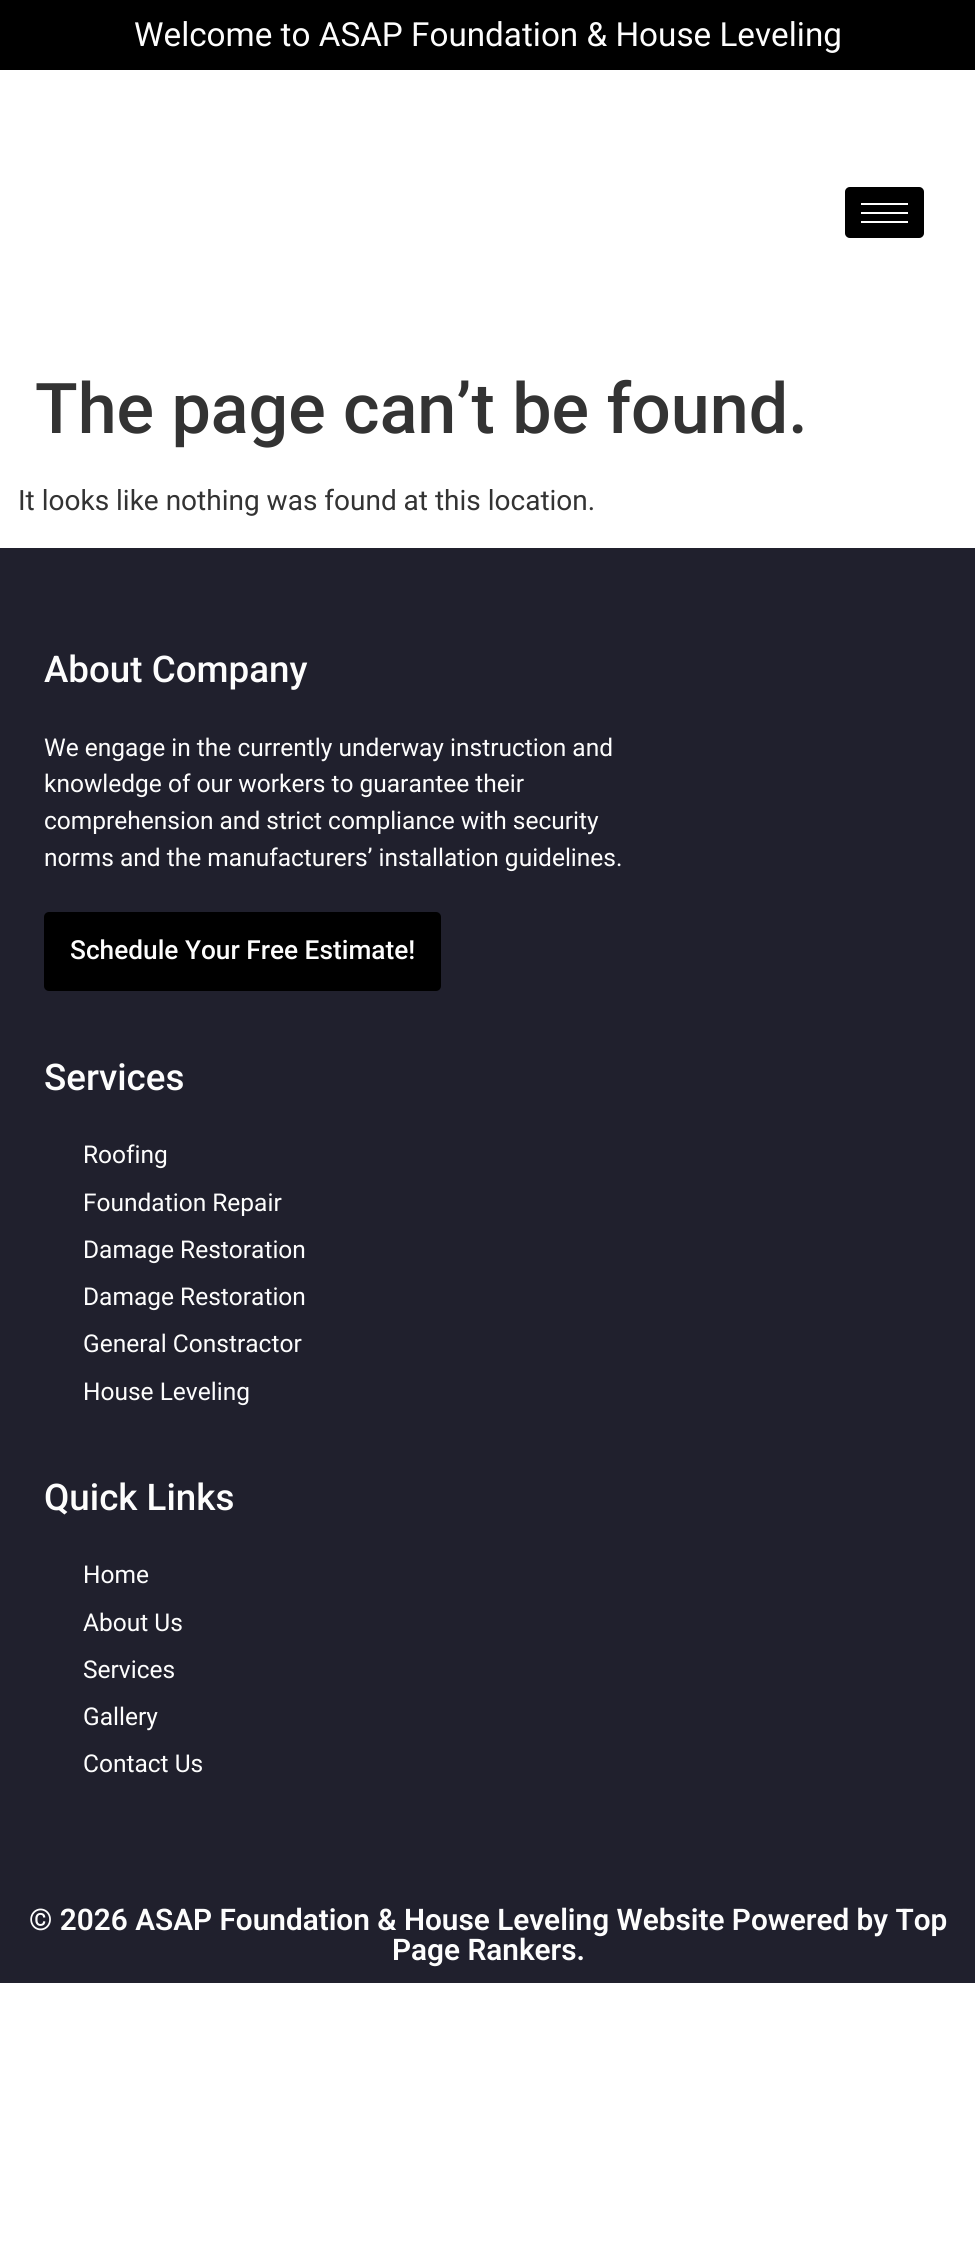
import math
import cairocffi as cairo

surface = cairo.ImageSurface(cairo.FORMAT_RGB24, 975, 2252)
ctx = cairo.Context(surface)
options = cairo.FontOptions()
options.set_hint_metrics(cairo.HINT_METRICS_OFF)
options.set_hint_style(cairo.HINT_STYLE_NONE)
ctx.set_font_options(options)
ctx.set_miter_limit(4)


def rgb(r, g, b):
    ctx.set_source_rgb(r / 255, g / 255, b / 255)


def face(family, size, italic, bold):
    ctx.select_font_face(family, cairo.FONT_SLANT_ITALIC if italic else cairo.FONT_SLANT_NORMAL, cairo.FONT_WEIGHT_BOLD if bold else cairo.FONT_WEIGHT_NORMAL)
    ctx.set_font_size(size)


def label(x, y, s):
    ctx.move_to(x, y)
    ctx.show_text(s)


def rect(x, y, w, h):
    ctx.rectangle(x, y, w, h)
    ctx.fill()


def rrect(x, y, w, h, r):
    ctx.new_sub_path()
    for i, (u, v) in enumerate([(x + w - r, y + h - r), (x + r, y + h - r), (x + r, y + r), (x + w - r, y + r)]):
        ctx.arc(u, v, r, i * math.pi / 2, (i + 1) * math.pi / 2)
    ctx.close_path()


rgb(255, 255, 255)
ctx.paint()
rgb(0, 0, 0)
rect(0, 0, 975, 70)
face('Roboto', 33.25, 0, 0)
rgb(253, 253, 253)
label(134, 46, 'Welcome to ASAP Foundation & House Leveling')
rgb(0, 0, 0)
rrect(845, 187, 79, 51, 5)
ctx.fill()
rrect(846, 188, 77, 49, 4)
ctx.set_source_rgba(0, 0, 0, 0.2)
ctx.stroke()
rgb(255, 255, 255)
rect(861, 203, 47, 2)
rect(861, 212, 47, 2)
rect(861, 221, 47, 2)
face('Roboto Medium', 70, 0, 0)
rgb(51, 51, 51)
label(35, 433, 'The page can’t be found.')
face('Roboto', 28, 0, 0)
label(18, 510, 'It looks like nothing was found at this location.')
rgb(32, 32, 45)
rect(0, 548, 975, 1435)
face('Roboto Medium', 36.75, 0, 0)
rgb(253, 253, 253)
label(44, 682, 'About Company')
face('Roboto', 24.5, 0, 0)
label(44, 756, 'We engage in the currently underway instruction and')
label(44, 792, 'knowledge of our workers to guarantee their')
label(44, 829, 'comprehension and strict compliance with security')
label(44, 866, 'norms and the manufacturers’ installation guidelines.')
rgb(0, 0, 0)
rrect(44, 912, 397, 79, 5)
ctx.fill()
face('Roboto Medium', 26.25, 0, 0)
rgb(253, 253, 253)
label(70, 959, 'Schedule Your Free Estimate!')
face('Roboto Medium', 36.75, 0, 0)
label(44, 1090, 'Services')
face('Roboto', 24.5, 0, 0)
label(83, 1163, 'Roofing')
label(83, 1211, 'Foundation Repair')
label(83, 1258, 'Damage Restoration')
label(83, 1305, 'Damage Restoration')
label(83, 1352, 'General Constractor')
label(83, 1400, 'House Leveling')
face('Roboto Medium', 36.75, 0, 0)
label(44, 1510, 'Quick Links')
face('Roboto', 24.5, 0, 0)
label(83, 1583, 'Home')
label(83, 1631, 'About Us')
label(83, 1678, 'Services')
label(83, 1725, 'Gallery')
label(83, 1772, 'Contact Us')
face('Roboto SemiBold', 29.75, 0, 0)
label(29, 1930, '© 2026 ASAP Foundation & House Leveling Website Powered by Top')
label(392, 1960, 'Page Rankers.')
surface.write_to_png('render.png')
